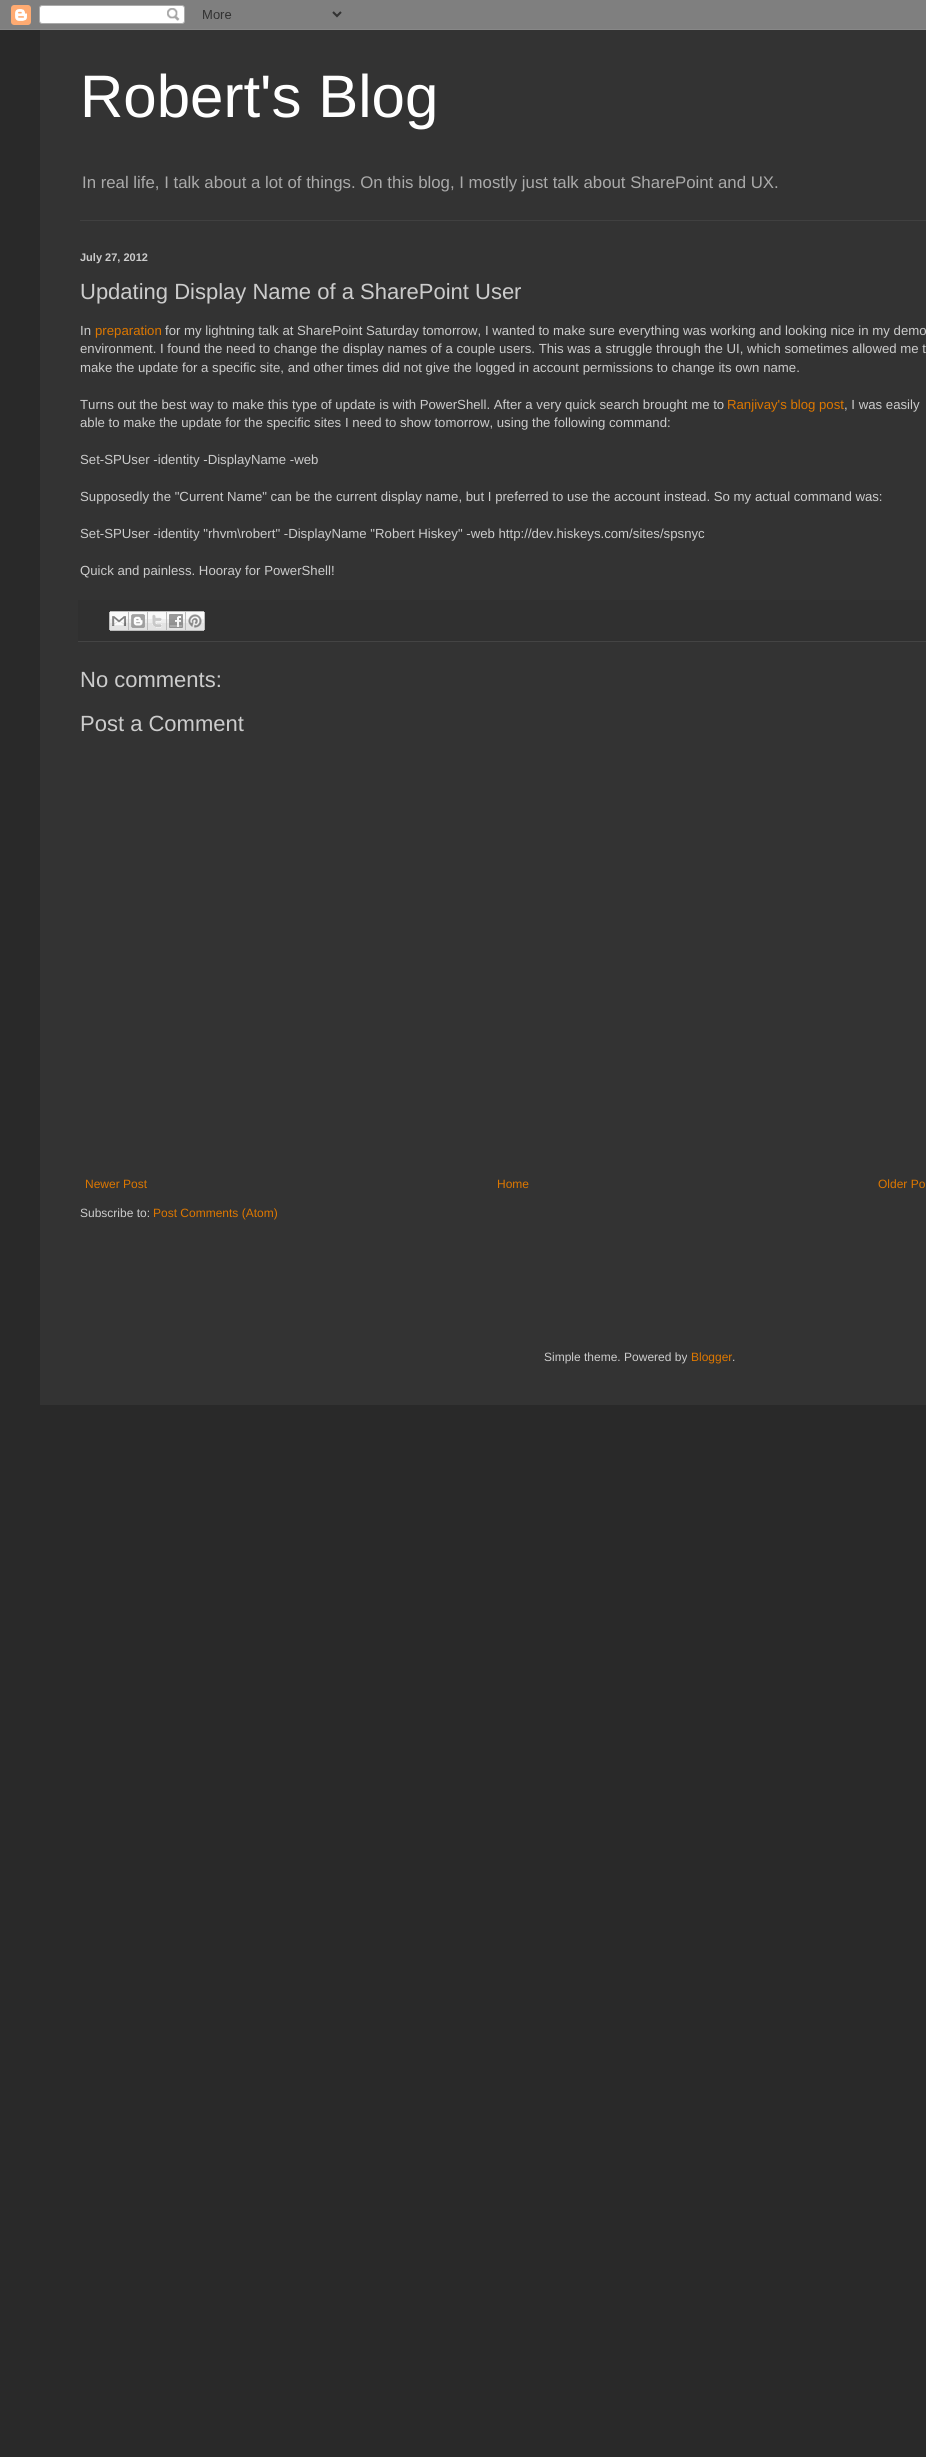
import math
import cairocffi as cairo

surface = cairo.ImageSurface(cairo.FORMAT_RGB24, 926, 2457)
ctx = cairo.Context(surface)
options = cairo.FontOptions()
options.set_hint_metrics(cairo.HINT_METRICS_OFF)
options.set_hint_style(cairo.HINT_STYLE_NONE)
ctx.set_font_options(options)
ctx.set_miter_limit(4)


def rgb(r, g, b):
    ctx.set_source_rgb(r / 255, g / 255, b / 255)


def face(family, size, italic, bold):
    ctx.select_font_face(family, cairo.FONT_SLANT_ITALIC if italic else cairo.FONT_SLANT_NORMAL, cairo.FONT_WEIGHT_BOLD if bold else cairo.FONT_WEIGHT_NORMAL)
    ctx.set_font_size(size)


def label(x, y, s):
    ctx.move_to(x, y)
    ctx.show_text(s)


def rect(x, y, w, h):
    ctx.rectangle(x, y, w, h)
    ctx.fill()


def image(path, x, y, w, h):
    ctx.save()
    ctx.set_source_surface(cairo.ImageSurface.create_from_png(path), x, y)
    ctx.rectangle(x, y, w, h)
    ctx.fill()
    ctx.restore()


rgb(41, 41, 41)
ctx.paint()
image('image0.png', 0, 0, 926, 30)
rgb(51, 51, 51)
rect(40, 30, 886, 1375)
face('Liberation Sans', 60, 0, 0)
rgb(255, 255, 255)
label(80, 117, 'Robert\'s Blog')
face('Liberation Sans', 16.8, 0, 0)
rgb(170, 170, 170)
label(82, 188, 'In real life, I talk about a lot of things. On this blog, I mostly just talk about SharePoint and UX.')
rgb(64, 64, 64)
rect(80, 220, 846, 1)
face('Liberation Sans', 11, 0, 1)
rgb(204, 204, 204)
label(80, 261, 'July 27, 2012')
face('Liberation Sans', 22, 0, 0)
label(80, 299, 'Updating Display Name of a SharePoint User')
face('Liberation Sans', 13.2, 0, 0)
label(80, 335, 'In')
rgb(221, 119, 0)
label(95, 335, 'preparation')
rgb(204, 204, 204)
label(165, 335, 'for my lightning talk at SharePoint Saturday tomorrow, I wanted to make sure everything was working and looking nice in my demo')
label(80, 353, 'environment. I found the need to change the display names of a couple users. This was a struggle through the UI, which sometimes allowed me t')
label(80, 372, 'make the update for a specific site, and other times did not give the logged in account permissions to change its own name.')
label(80, 409, 'Turns out the best way to make this type of update is with PowerShell. After a very quick search brought me to')
rgb(221, 119, 0)
label(727, 409, 'Ranjivay\'s blog post')
rgb(204, 204, 204)
label(844, 409, ', I was easily')
label(80, 427, 'able to make the update for the specific sites I need to show tomorrow, using the following command:')
label(80, 464, 'Set-SPUser -identity -DisplayName -web')
label(80, 501, 'Supposedly the "Current Name" can be the current display name, but I preferred to use the account instead. So my actual command was:')
label(80, 538, 'Set-SPUser -identity "rhvm\\robert" -DisplayName "Robert Hiskey" -web http://dev.hiskeys.com/sites/spsnyc')
label(80, 575, 'Quick and painless. Hooray for PowerShell!')
rgb(48, 48, 48)
rect(78, 600, 848, 41)
rgb(68, 68, 68)
rect(78, 641, 848, 1)
image('image1.png', 109, 611, 20, 20)
image('image2.png', 129, 611, 19, 20)
image('image3.png', 148, 611, 19, 20)
image('image4.png', 167, 611, 19, 20)
image('image5.png', 186, 611, 19, 20)
face('Liberation Sans', 22, 0, 0)
rgb(204, 204, 204)
label(80, 687, 'No comments:')
label(80, 731, 'Post a Comment')
face('Liberation Sans', 12, 0, 0)
rgb(221, 119, 0)
label(85, 1188, 'Newer Post')
label(497, 1188, 'Home')
label(878, 1188, 'Older Po')
rgb(204, 204, 204)
label(80, 1217, 'Subscribe to:')
rgb(221, 119, 0)
label(153, 1217, 'Post Comments (Atom)')
rgb(204, 204, 204)
label(544, 1361, 'Simple theme. Powered by')
rgb(221, 119, 0)
label(691, 1361, 'Blogger')
rgb(204, 204, 204)
label(732, 1361, '.')
surface.write_to_png('render.png')
